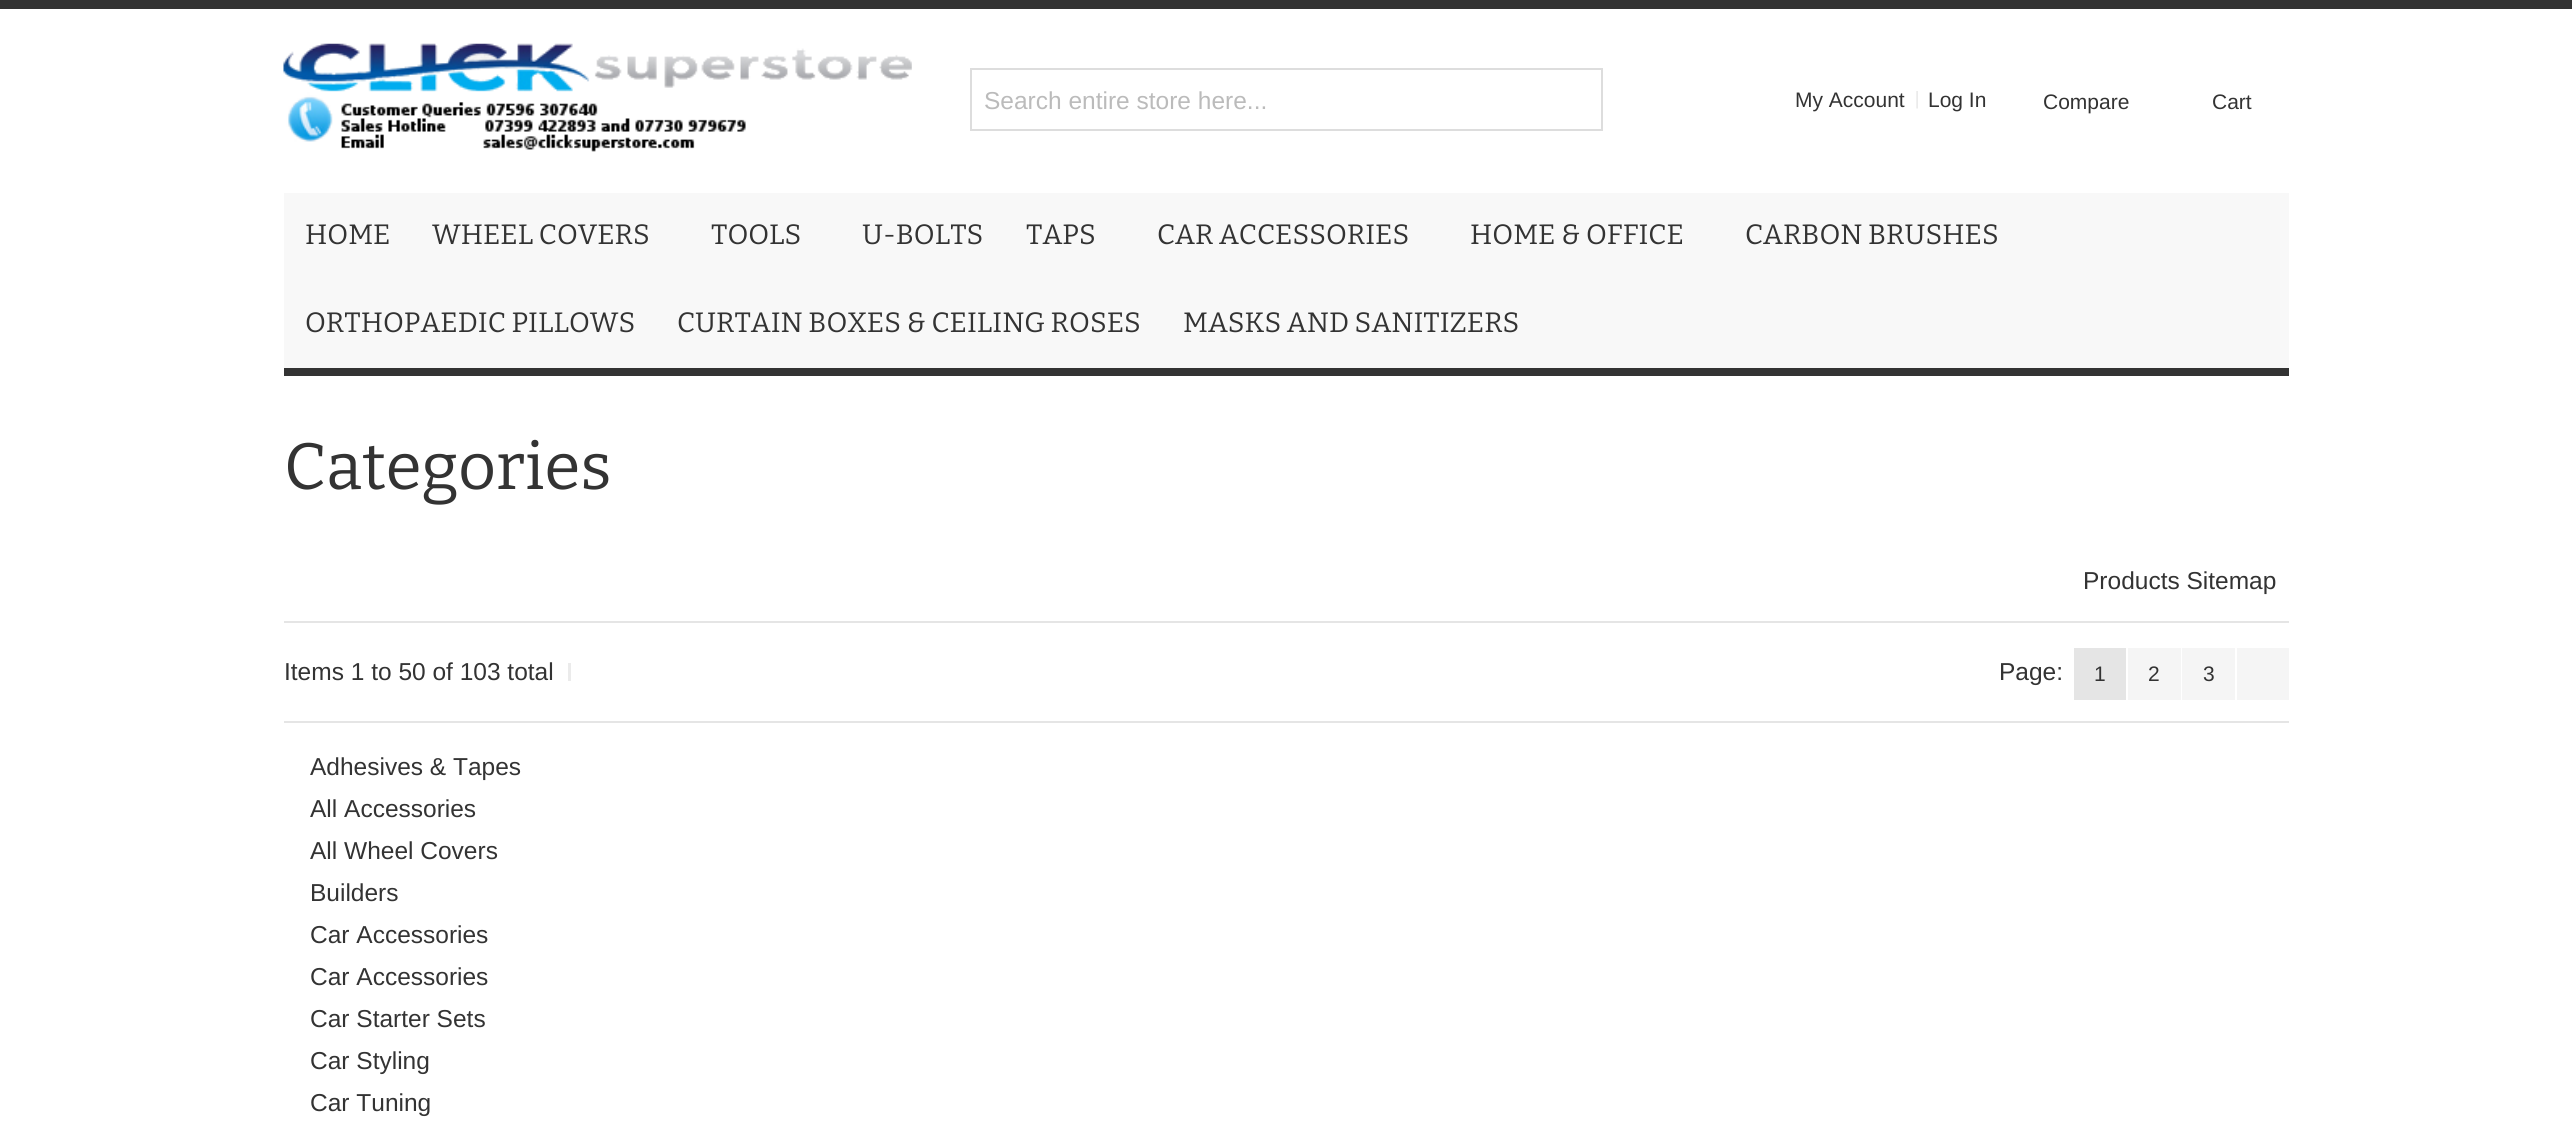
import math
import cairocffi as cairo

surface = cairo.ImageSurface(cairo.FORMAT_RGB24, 2572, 1147)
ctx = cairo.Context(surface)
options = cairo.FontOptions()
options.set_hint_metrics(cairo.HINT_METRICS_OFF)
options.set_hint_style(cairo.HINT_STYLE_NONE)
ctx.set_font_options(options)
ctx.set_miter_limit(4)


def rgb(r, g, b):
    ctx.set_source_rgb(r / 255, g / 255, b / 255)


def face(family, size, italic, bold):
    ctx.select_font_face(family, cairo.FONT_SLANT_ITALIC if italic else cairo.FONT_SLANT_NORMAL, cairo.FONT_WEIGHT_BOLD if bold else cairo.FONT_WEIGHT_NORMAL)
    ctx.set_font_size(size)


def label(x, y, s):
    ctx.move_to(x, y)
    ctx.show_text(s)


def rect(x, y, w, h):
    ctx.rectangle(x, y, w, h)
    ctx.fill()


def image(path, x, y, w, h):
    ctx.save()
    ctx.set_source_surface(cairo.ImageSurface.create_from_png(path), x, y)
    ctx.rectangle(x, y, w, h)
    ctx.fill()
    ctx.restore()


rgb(255, 255, 255)
ctx.paint()
rgb(51, 51, 51)
rect(0, 0, 2572, 9)
image('image0.png', 283, 43, 629, 109)
ctx.rectangle(971, 69, 631, 61)
rgb(221, 221, 221)
ctx.stroke()
face('Liberation Sans', 24.5, 0, 0)
rgb(187, 187, 187)
label(984, 109, 'Search entire store here...')
face('Liberation Sans', 21, 0, 0)
rgb(51, 51, 51)
label(1795, 107, 'My Account')
image('image1.png', 1916, 91, 2, 18)
label(1928, 107, 'Log In')
label(2043, 109, 'Compare')
label(2212, 109, 'Cart')
rgb(248, 248, 248)
rect(284, 193, 2005, 175)
face('Bitter Thin', 28, 0, 0)
rgb(51, 51, 51)
label(305, 244, 'HOME')
label(432, 244, 'WHEEL COVERS')
label(711, 244, 'TOOLS')
label(862, 244, 'U-BOLTS')
label(1026, 244, 'TAPS')
label(1157, 244, 'CAR ACCESSORIES')
label(1470, 244, 'HOME & OFFICE')
label(1745, 244, 'CARBON BRUSHES')
label(305, 332, 'ORTHOPAEDIC PILLOWS')
label(677, 332, 'CURTAIN BOXES & CEILING ROSES')
label(1183, 332, 'MASKS AND SANITIZERS')
rect(284, 368, 2005, 8)
face('Bitter Thin', 65.5, 0, 0)
label(284, 489, 'Categories')
face('Liberation Sans', 24.5, 0, 0)
label(2083, 589, 'Products Sitemap')
rgb(229, 229, 229)
rect(284, 621, 2005, 2)
rect(284, 721, 2005, 2)
rgb(235, 235, 235)
rect(568, 663, 3, 18)
rgb(51, 51, 51)
label(284, 680, 'Items 1 to 50 of 103 total')
label(1999, 680, 'Page:')
rgb(229, 229, 229)
rect(2074, 648, 52, 52)
face('Liberation Sans', 21, 0, 0)
rgb(51, 51, 51)
label(2094, 681, '1')
rgb(245, 245, 245)
rect(2128, 648, 53, 52)
rgb(51, 51, 51)
label(2148, 681, '2')
rgb(245, 245, 245)
rect(2182, 648, 53, 52)
rgb(51, 51, 51)
label(2203, 681, '3')
rgb(245, 245, 245)
rect(2237, 648, 52, 52)
face('Liberation Sans', 24.5, 0, 0)
rgb(51, 51, 51)
label(310, 775, 'Adhesives & Tapes')
label(310, 817, 'All Accessories')
label(310, 859, 'All Wheel Covers')
label(310, 901, 'Builders')
label(310, 943, 'Car Accessories')
label(310, 985, 'Car Accessories')
label(310, 1027, 'Car Starter Sets')
label(310, 1069, 'Car Styling')
label(310, 1111, 'Car Tuning')
surface.write_to_png('render.png')
